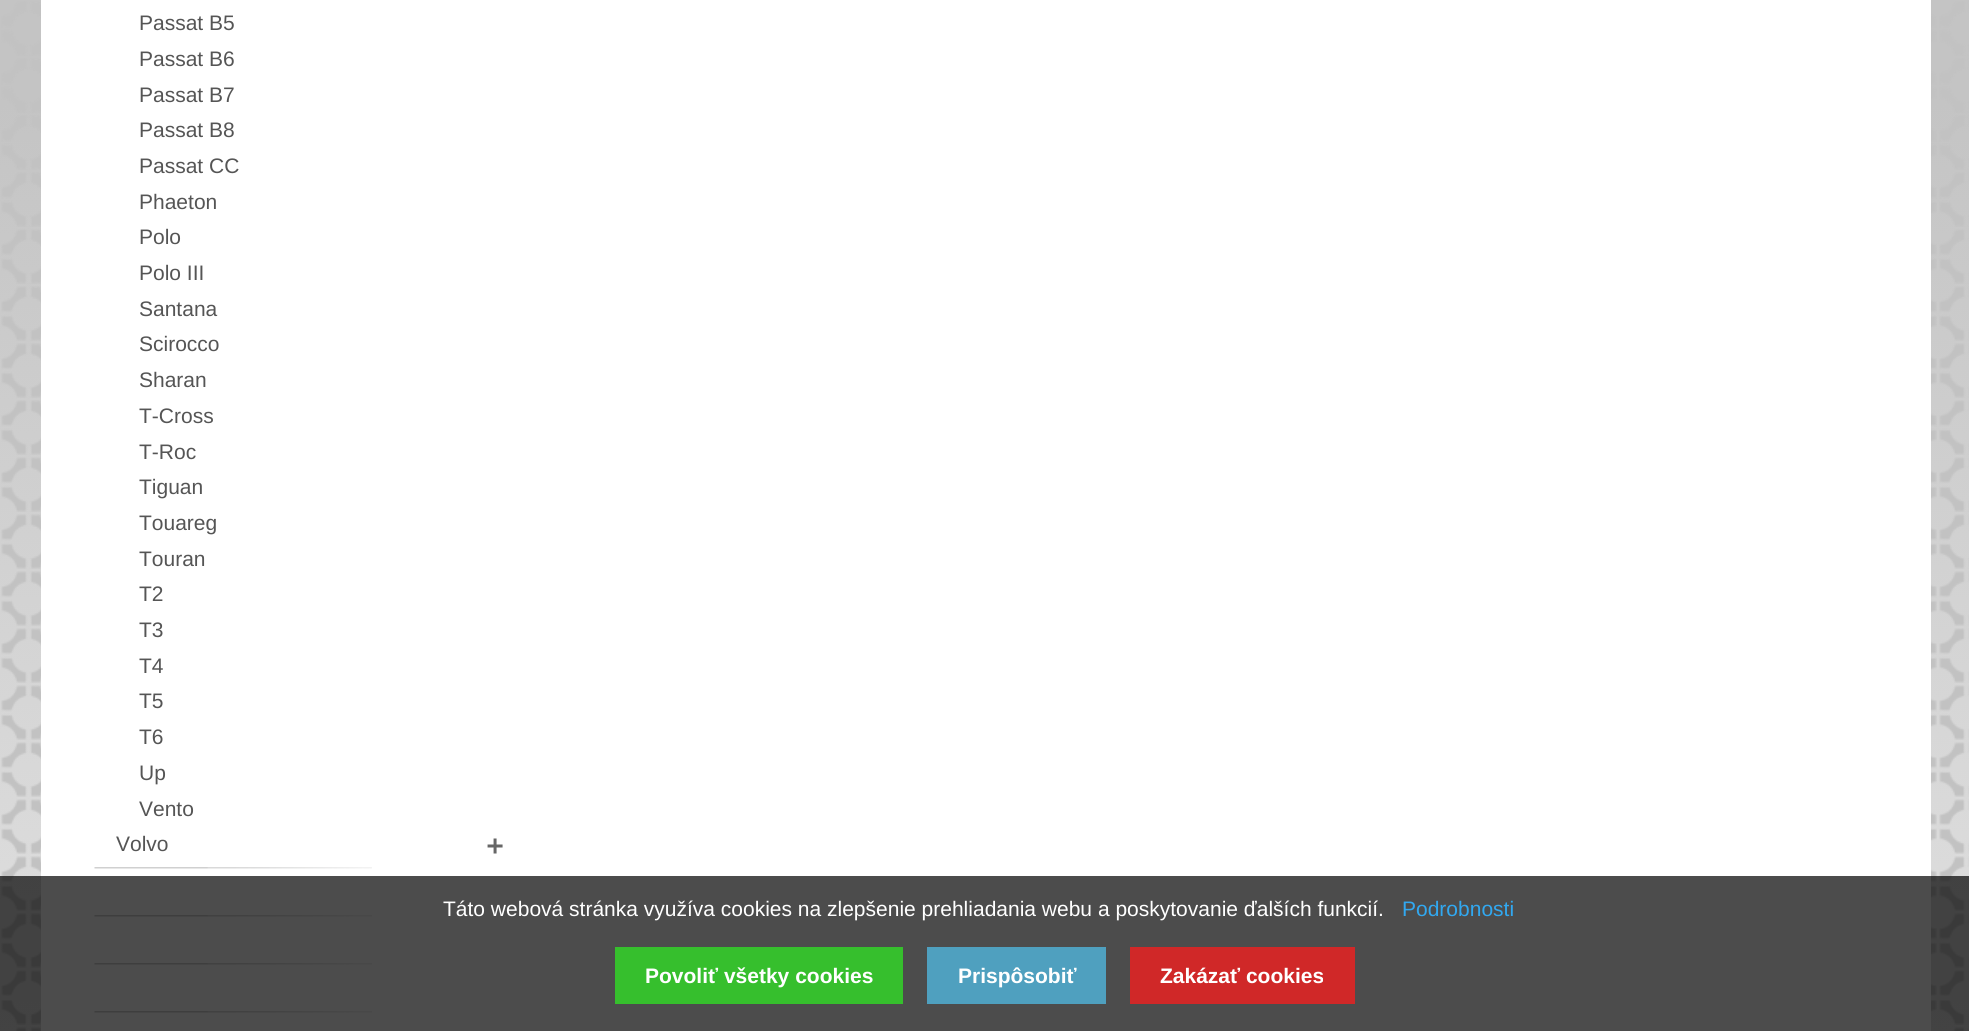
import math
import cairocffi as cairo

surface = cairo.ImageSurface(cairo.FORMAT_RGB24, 1969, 1031)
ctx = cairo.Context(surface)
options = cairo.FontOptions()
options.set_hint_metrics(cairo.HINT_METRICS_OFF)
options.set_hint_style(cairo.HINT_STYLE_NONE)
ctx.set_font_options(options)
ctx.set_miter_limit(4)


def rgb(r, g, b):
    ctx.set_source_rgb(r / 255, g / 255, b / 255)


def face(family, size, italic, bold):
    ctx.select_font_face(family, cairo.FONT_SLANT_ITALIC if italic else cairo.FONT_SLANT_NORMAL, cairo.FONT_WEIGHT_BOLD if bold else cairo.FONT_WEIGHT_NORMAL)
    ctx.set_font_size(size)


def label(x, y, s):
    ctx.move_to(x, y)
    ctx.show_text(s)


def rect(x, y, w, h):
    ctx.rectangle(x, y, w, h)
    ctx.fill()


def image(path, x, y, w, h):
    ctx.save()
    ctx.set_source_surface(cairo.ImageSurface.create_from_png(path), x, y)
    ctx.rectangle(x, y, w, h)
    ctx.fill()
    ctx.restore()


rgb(255, 255, 255)
ctx.paint()
image('image0.png', 0, 0, 1969, 1031)
rgb(255, 255, 255)
rect(41, 0, 1890, 1031)
image('image1.png', 94, 867, 278, 2)
face('Liberation Sans', 21, 0, 0)
rgb(85, 85, 85)
label(139, 30, 'Passat B5')
label(139, 66, 'Passat B6')
label(139, 102, 'Passat B7')
label(139, 137, 'Passat B8')
label(139, 173, 'Passat CC')
label(139, 209, 'Phaeton')
label(139, 244, 'Polo')
label(139, 280, 'Polo III')
label(139, 316, 'Santana')
label(139, 351, 'Scirocco')
label(139, 387, 'Sharan')
label(139, 423, 'T-Cross')
label(139, 459, 'T-Roc')
label(139, 494, 'Tiguan')
label(139, 530, 'Touareg')
label(139, 566, 'Touran')
label(139, 601, 'T2')
label(139, 637, 'T3')
label(139, 673, 'T4')
label(139, 708, 'T5')
label(139, 744, 'T6')
label(139, 780, 'Up')
label(139, 816, 'Vento')
label(116, 851, 'Volvo')
image('image2.png', 487, 838, 16, 16)
image('image1.png', 94, 915, 278, 2)
image('image1.png', 94, 963, 278, 2)
image('image1.png', 94, 1011, 278, 2)
ctx.set_source_rgba(0, 0, 0, 0.7)
rect(0, 876, 1969, 155)
rgb(255, 255, 255)
label(443, 916, 'Táto webová stránka využíva cookies na zlepšenie prehliadania webu a poskytovanie ďalších funkcií.')
rgb(49, 168, 240)
label(1402, 916, 'Podrobnosti')
rgb(54, 191, 45)
rect(615, 947, 288, 57)
face('Liberation Sans', 21, 0, 1)
rgb(255, 255, 255)
label(645, 983, 'Povoliť všetky cookies')
rgb(79, 160, 191)
rect(927, 947, 179, 57)
rgb(255, 255, 255)
label(958, 983, 'Prispôsobiť')
rgb(208, 40, 40)
rect(1130, 947, 225, 57)
rgb(255, 255, 255)
label(1160, 983, 'Zakázať cookies')
surface.write_to_png('render.png')
